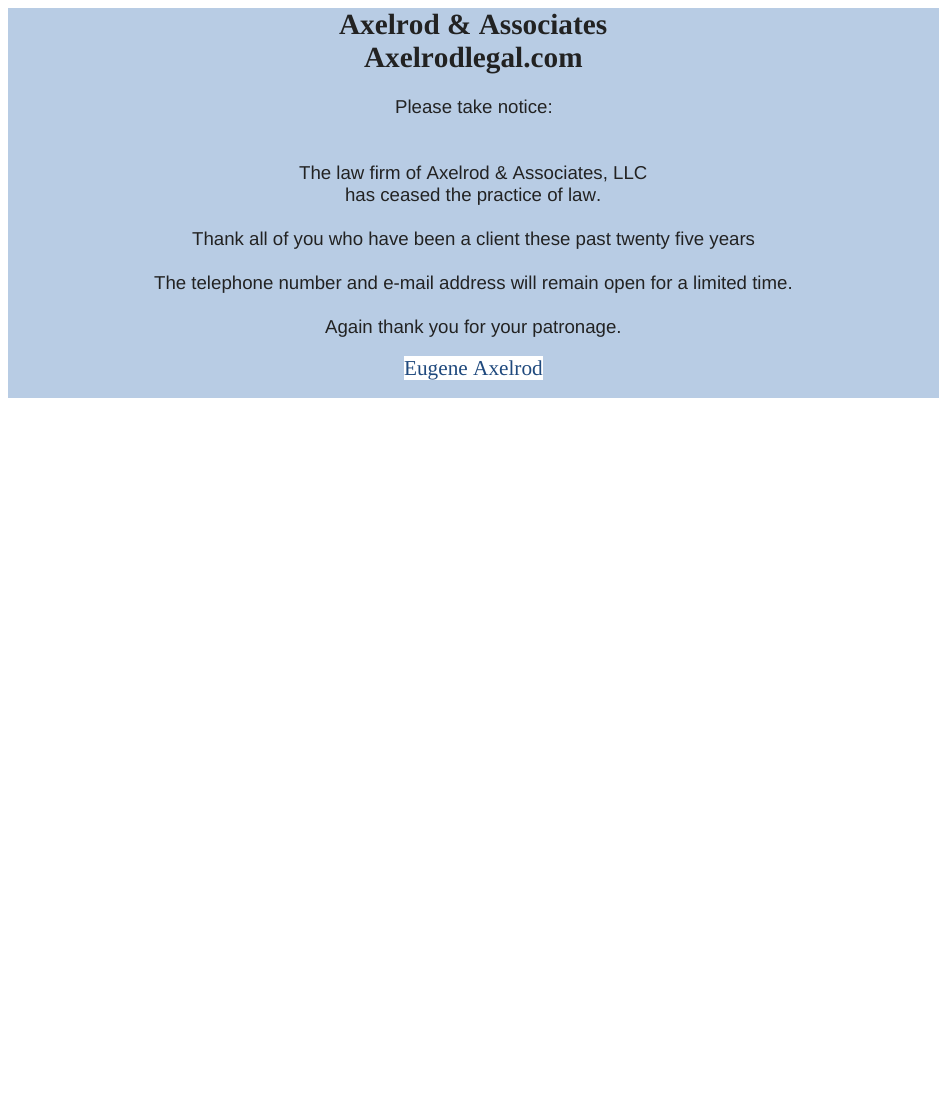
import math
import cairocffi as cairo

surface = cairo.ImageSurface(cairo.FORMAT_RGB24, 947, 1093)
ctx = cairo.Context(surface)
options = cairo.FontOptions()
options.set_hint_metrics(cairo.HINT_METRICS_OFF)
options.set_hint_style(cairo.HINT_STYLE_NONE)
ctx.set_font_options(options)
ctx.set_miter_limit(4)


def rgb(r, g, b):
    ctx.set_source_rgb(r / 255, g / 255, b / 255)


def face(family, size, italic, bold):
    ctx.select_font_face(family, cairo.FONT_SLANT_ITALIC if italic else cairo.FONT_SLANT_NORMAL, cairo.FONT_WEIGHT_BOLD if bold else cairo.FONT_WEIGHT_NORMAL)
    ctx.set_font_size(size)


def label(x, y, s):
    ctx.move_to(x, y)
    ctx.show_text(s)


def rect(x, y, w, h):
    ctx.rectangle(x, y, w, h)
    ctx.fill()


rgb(255, 255, 255)
ctx.paint()
rgb(184, 204, 228)
rect(8, 8, 931, 390)
face('Liberation Serif', 29.25, 0, 1)
rgb(34, 34, 34)
label(339, 34, 'Axelrod & Associates')
label(364, 67, 'Axelrodlegal.com')
face('Liberation Sans', 18.65, 0, 0)
label(395, 113, 'Please take notice:')
label(299, 179, 'The law firm of Axelrod & Associates, LLC')
label(345, 201, 'has ceased the practice of law.')
label(192, 245, 'Thank all of you who have been a client these past twenty five years')
label(154, 289, 'The telephone number and e-mail address will remain open for a limited time.')
label(325, 333, 'Again thank you for your patronage.')
rgb(255, 255, 255)
rect(404, 356, 139, 24)
face('Liberation Serif', 21.25, 0, 0)
rgb(31, 73, 125)
label(404, 375, 'Eugene Axelrod')
surface.write_to_png('render.png')
